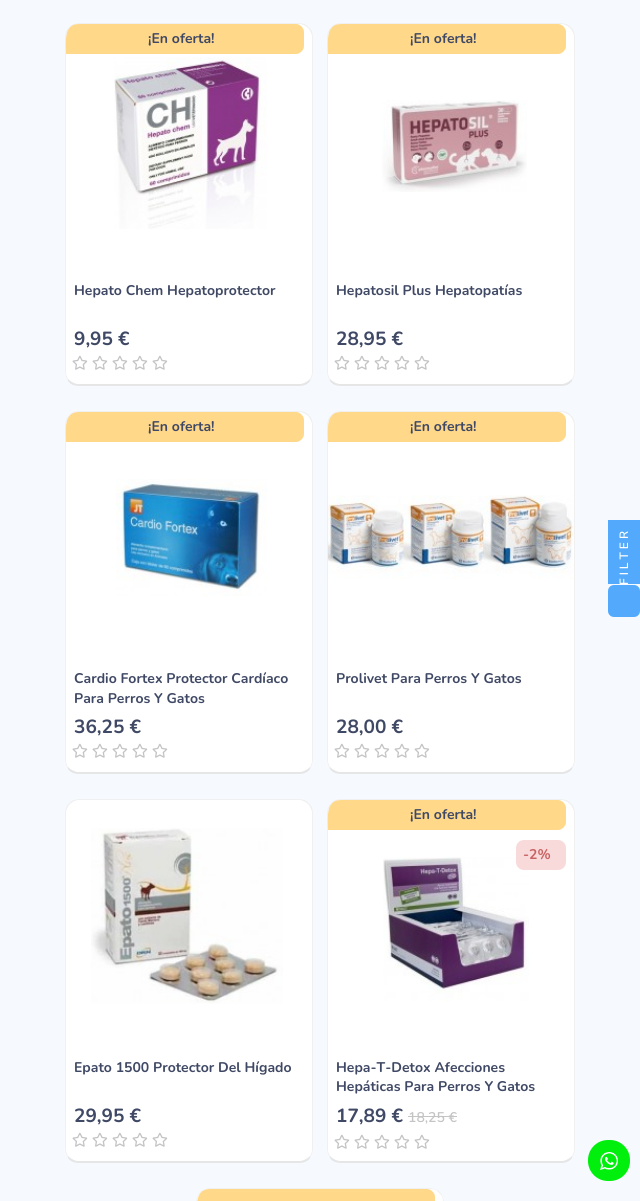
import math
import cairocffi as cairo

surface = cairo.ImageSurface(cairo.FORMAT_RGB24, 640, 1201)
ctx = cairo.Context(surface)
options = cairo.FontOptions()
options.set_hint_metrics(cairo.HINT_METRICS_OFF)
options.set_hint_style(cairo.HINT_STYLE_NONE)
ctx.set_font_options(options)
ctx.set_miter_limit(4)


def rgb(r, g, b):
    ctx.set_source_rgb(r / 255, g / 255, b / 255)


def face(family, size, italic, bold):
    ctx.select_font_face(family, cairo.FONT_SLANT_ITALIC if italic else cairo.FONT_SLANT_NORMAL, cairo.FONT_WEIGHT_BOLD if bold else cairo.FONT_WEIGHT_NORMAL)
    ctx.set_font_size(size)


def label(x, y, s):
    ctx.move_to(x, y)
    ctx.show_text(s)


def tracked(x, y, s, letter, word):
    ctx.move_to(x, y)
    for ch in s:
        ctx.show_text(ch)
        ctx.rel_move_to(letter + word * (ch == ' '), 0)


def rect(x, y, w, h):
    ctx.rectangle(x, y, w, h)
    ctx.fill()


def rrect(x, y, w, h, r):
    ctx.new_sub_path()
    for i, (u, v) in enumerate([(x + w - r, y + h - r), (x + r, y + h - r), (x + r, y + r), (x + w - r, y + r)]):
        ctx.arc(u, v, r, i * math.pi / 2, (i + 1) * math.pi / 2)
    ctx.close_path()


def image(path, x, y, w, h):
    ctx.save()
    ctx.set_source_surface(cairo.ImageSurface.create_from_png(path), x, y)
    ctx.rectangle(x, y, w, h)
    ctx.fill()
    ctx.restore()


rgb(246, 250, 255)
ctx.paint()
rgb(255, 255, 255)
rrect(65, 23, 248, 363, 14)
ctx.fill()
rgb(240, 240, 240)
ctx.new_path()
ctx.move_to(79, 23)
ctx.curve_to(75, 23, 72, 24, 69, 27)
ctx.line_to(70, 28)
ctx.curve_to(72, 26, 76, 24, 79, 24)
ctx.line_to(299, 24)
ctx.curve_to(302, 24, 306, 26, 308, 28)
ctx.line_to(309, 27)
ctx.curve_to(306, 24, 303, 23, 299, 23)
ctx.close_path()
ctx.fill()
ctx.new_path()
ctx.move_to(313, 372)
ctx.line_to(313, 37)
ctx.curve_to(313, 33, 312, 30, 309, 27)
ctx.line_to(308, 28)
ctx.curve_to(310, 30, 312, 34, 312, 37)
ctx.line_to(312, 372)
ctx.curve_to(312, 375, 311, 377, 310, 379)
ctx.line_to(310, 381)
ctx.curve_to(312, 378, 313, 375, 313, 372)
ctx.close_path()
ctx.fill()
ctx.set_source_rgba(0, 0, 0, 0.1)
ctx.new_path()
ctx.move_to(79, 386)
ctx.line_to(299, 386)
ctx.curve_to(304, 386, 308, 384, 310, 381)
ctx.line_to(310, 379)
ctx.curve_to(307, 382, 303, 384, 299, 384)
ctx.line_to(79, 384)
ctx.curve_to(75, 384, 71, 382, 68, 379)
ctx.line_to(68, 381)
ctx.curve_to(70, 384, 74, 386, 79, 386)
ctx.close_path()
ctx.fill()
rgb(240, 240, 240)
ctx.new_path()
ctx.move_to(65, 37)
ctx.line_to(65, 372)
ctx.curve_to(65, 375, 66, 378, 68, 381)
ctx.line_to(68, 379)
ctx.curve_to(67, 377, 66, 375, 66, 372)
ctx.line_to(66, 37)
ctx.curve_to(66, 34, 68, 30, 70, 28)
ctx.line_to(69, 27)
ctx.curve_to(66, 30, 65, 33, 65, 37)
ctx.close_path()
ctx.fill()
rgb(255, 216, 138)
ctx.new_path()
ctx.move_to(79, 24)
ctx.curve_to(63, 24, 66, 43, 66, 54)
ctx.line_to(296, 54)
ctx.curve_to(300, 54, 304, 50, 304, 46)
ctx.line_to(304, 32)
ctx.curve_to(304, 28, 300, 24, 296, 24)
ctx.close_path()
ctx.fill()
face('Nunito', 14, 0, 1)
rgb(63, 72, 100)
label(148, 43, '¡En oferta!')
image('image0.png', 114, 57, 153, 172)
label(74, 295, 'Hepato Chem Hepatoprotector')
rgb(255, 255, 255)
ctx.new_path()
ctx.move_to(66, 329)
ctx.line_to(312, 329)
ctx.line_to(312, 370)
ctx.curve_to(312, 377.5, 305.5, 384, 298, 384)
ctx.line_to(80, 384)
ctx.curve_to(72.5, 384, 66, 377.5, 66, 370)
ctx.close_path()
ctx.fill()
face('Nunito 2', 19, 0, 1)
rgb(63, 72, 100)
label(74, 345, '9,95 €')
image('image1.png', 72, 355, 16, 15)
image('image1.png', 92, 355, 16, 15)
image('image1.png', 112, 355, 16, 15)
image('image1.png', 132, 355, 16, 15)
image('image1.png', 152, 355, 16, 15)
rgb(255, 255, 255)
rrect(327, 23, 248, 363, 14)
ctx.fill()
rgb(240, 240, 240)
ctx.new_path()
ctx.move_to(341, 23)
ctx.curve_to(337, 23, 334, 24, 331, 27)
ctx.line_to(332, 28)
ctx.curve_to(334, 26, 338, 24, 341, 24)
ctx.line_to(561, 24)
ctx.curve_to(564, 24, 568, 26, 570, 28)
ctx.line_to(571, 27)
ctx.curve_to(568, 24, 565, 23, 561, 23)
ctx.close_path()
ctx.fill()
ctx.new_path()
ctx.move_to(575, 372)
ctx.line_to(575, 37)
ctx.curve_to(575, 33, 574, 30, 571, 27)
ctx.line_to(570, 28)
ctx.curve_to(572, 30, 574, 34, 574, 37)
ctx.line_to(574, 372)
ctx.curve_to(574, 375, 573, 377, 572, 379)
ctx.line_to(572, 381)
ctx.curve_to(574, 378, 575, 375, 575, 372)
ctx.close_path()
ctx.fill()
ctx.set_source_rgba(0, 0, 0, 0.1)
ctx.new_path()
ctx.move_to(341, 386)
ctx.line_to(561, 386)
ctx.curve_to(566, 386, 570, 384, 572, 381)
ctx.line_to(572, 379)
ctx.curve_to(569, 382, 565, 384, 561, 384)
ctx.line_to(341, 384)
ctx.curve_to(337, 384, 333, 382, 330, 379)
ctx.line_to(330, 381)
ctx.curve_to(332, 384, 336, 386, 341, 386)
ctx.close_path()
ctx.fill()
rgb(240, 240, 240)
ctx.new_path()
ctx.move_to(327, 37)
ctx.line_to(327, 372)
ctx.curve_to(327, 375, 328, 378, 330, 381)
ctx.line_to(330, 379)
ctx.curve_to(329, 377, 328, 375, 328, 372)
ctx.line_to(328, 37)
ctx.curve_to(328, 34, 330, 30, 332, 28)
ctx.line_to(331, 27)
ctx.curve_to(328, 30, 327, 33, 327, 37)
ctx.close_path()
ctx.fill()
rgb(255, 216, 138)
ctx.new_path()
ctx.move_to(341, 24)
ctx.curve_to(325, 24, 328, 43, 328, 54)
ctx.line_to(558, 54)
ctx.curve_to(562, 54, 566, 50, 566, 46)
ctx.line_to(566, 32)
ctx.curve_to(566, 28, 562, 24, 558, 24)
ctx.close_path()
ctx.fill()
face('Nunito', 14, 0, 1)
rgb(63, 72, 100)
label(410, 43, '¡En oferta!')
image('image2.png', 382, 100, 145, 92)
label(336, 295, 'Hepatosil Plus Hepatopatías')
rgb(255, 255, 255)
ctx.new_path()
ctx.move_to(328, 329)
ctx.line_to(574, 329)
ctx.line_to(574, 370)
ctx.curve_to(574, 377.5, 567.5, 384, 560, 384)
ctx.line_to(342, 384)
ctx.curve_to(334.5, 384, 328, 377.5, 328, 370)
ctx.close_path()
ctx.fill()
face('Nunito 2', 19, 0, 1)
rgb(63, 72, 100)
label(336, 345, '28,95 €')
image('image1.png', 334, 355, 16, 15)
image('image1.png', 354, 355, 16, 15)
image('image1.png', 374, 355, 16, 15)
image('image1.png', 394, 355, 16, 15)
image('image1.png', 414, 355, 16, 15)
rgb(255, 255, 255)
rrect(65, 411, 248, 363, 14)
ctx.fill()
rgb(240, 240, 240)
ctx.new_path()
ctx.move_to(79, 411)
ctx.curve_to(75, 411, 72, 412, 69, 415)
ctx.line_to(70, 416)
ctx.curve_to(72, 414, 76, 412, 79, 412)
ctx.line_to(299, 412)
ctx.curve_to(302, 412, 306, 414, 308, 416)
ctx.line_to(309, 415)
ctx.curve_to(306, 412, 303, 411, 299, 411)
ctx.close_path()
ctx.fill()
ctx.new_path()
ctx.move_to(313, 760)
ctx.line_to(313, 425)
ctx.curve_to(313, 421, 312, 418, 309, 415)
ctx.line_to(308, 416)
ctx.curve_to(310, 418, 312, 422, 312, 425)
ctx.line_to(312, 760)
ctx.curve_to(312, 763, 311, 765, 310, 767)
ctx.line_to(310, 769)
ctx.curve_to(312, 766, 313, 763, 313, 760)
ctx.close_path()
ctx.fill()
ctx.set_source_rgba(0, 0, 0, 0.1)
ctx.new_path()
ctx.move_to(79, 774)
ctx.line_to(299, 774)
ctx.curve_to(304, 774, 308, 772, 310, 769)
ctx.line_to(310, 767)
ctx.curve_to(307, 770, 303, 772, 299, 772)
ctx.line_to(79, 772)
ctx.curve_to(75, 772, 71, 770, 68, 767)
ctx.line_to(68, 769)
ctx.curve_to(70, 772, 74, 774, 79, 774)
ctx.close_path()
ctx.fill()
rgb(240, 240, 240)
ctx.new_path()
ctx.move_to(65, 425)
ctx.line_to(65, 760)
ctx.curve_to(65, 763, 66, 766, 68, 769)
ctx.line_to(68, 767)
ctx.curve_to(67, 765, 66, 763, 66, 760)
ctx.line_to(66, 425)
ctx.curve_to(66, 422, 68, 418, 70, 416)
ctx.line_to(69, 415)
ctx.curve_to(66, 418, 65, 421, 65, 425)
ctx.close_path()
ctx.fill()
rgb(255, 216, 138)
ctx.new_path()
ctx.move_to(79, 412)
ctx.curve_to(63, 412, 66, 431, 66, 442)
ctx.line_to(296, 442)
ctx.curve_to(300, 442, 304, 438, 304, 434)
ctx.line_to(304, 420)
ctx.curve_to(304, 416, 300, 412, 296, 412)
ctx.close_path()
ctx.fill()
face('Nunito', 14, 0, 1)
rgb(63, 72, 100)
label(148, 431, '¡En oferta!')
image('image3.png', 116, 479, 151, 117)
label(74, 683, 'Cardio Fortex Protector Cardíaco')
label(74, 703, 'Para Perros Y Gatos')
rgb(255, 255, 255)
ctx.new_path()
ctx.move_to(66, 717)
ctx.line_to(312, 717)
ctx.line_to(312, 758)
ctx.curve_to(312, 765.5, 305.5, 772, 298, 772)
ctx.line_to(80, 772)
ctx.curve_to(72.5, 772, 66, 765.5, 66, 758)
ctx.close_path()
ctx.fill()
face('Nunito 2', 19, 0, 1)
rgb(63, 72, 100)
label(74, 733, '36,25 €')
image('image1.png', 72, 743, 16, 15)
image('image1.png', 92, 743, 16, 15)
image('image1.png', 112, 743, 16, 15)
image('image1.png', 132, 743, 16, 15)
image('image1.png', 152, 743, 16, 15)
rgb(255, 255, 255)
rrect(327, 411, 248, 363, 14)
ctx.fill()
rgb(240, 240, 240)
ctx.new_path()
ctx.move_to(341, 411)
ctx.curve_to(337, 411, 334, 412, 331, 415)
ctx.line_to(332, 416)
ctx.curve_to(334, 414, 338, 412, 341, 412)
ctx.line_to(561, 412)
ctx.curve_to(564, 412, 568, 414, 570, 416)
ctx.line_to(571, 415)
ctx.curve_to(568, 412, 565, 411, 561, 411)
ctx.close_path()
ctx.fill()
ctx.new_path()
ctx.move_to(575, 760)
ctx.line_to(575, 425)
ctx.curve_to(575, 421, 574, 418, 571, 415)
ctx.line_to(570, 416)
ctx.curve_to(572, 418, 574, 422, 574, 425)
ctx.line_to(574, 760)
ctx.curve_to(574, 763, 573, 765, 572, 767)
ctx.line_to(572, 769)
ctx.curve_to(574, 766, 575, 763, 575, 760)
ctx.close_path()
ctx.fill()
ctx.set_source_rgba(0, 0, 0, 0.1)
ctx.new_path()
ctx.move_to(341, 774)
ctx.line_to(561, 774)
ctx.curve_to(566, 774, 570, 772, 572, 769)
ctx.line_to(572, 767)
ctx.curve_to(569, 770, 565, 772, 561, 772)
ctx.line_to(341, 772)
ctx.curve_to(337, 772, 333, 770, 330, 767)
ctx.line_to(330, 769)
ctx.curve_to(332, 772, 336, 774, 341, 774)
ctx.close_path()
ctx.fill()
rgb(240, 240, 240)
ctx.new_path()
ctx.move_to(327, 425)
ctx.line_to(327, 760)
ctx.curve_to(327, 763, 328, 766, 330, 769)
ctx.line_to(330, 767)
ctx.curve_to(329, 765, 328, 763, 328, 760)
ctx.line_to(328, 425)
ctx.curve_to(328, 422, 330, 418, 332, 416)
ctx.line_to(331, 415)
ctx.curve_to(328, 418, 327, 421, 327, 425)
ctx.close_path()
ctx.fill()
rgb(255, 216, 138)
ctx.new_path()
ctx.move_to(341, 412)
ctx.curve_to(325, 412, 328, 431, 328, 442)
ctx.line_to(558, 442)
ctx.curve_to(562, 442, 566, 438, 566, 434)
ctx.line_to(566, 420)
ctx.curve_to(566, 416, 562, 412, 558, 412)
ctx.close_path()
ctx.fill()
face('Nunito', 14, 0, 1)
rgb(63, 72, 100)
label(410, 431, '¡En oferta!')
image('image4.png', 328, 495, 246, 84)
label(336, 683, 'Prolivet Para Perros Y Gatos')
rgb(255, 255, 255)
ctx.new_path()
ctx.move_to(328, 717)
ctx.line_to(574, 717)
ctx.line_to(574, 758)
ctx.curve_to(574, 765.5, 567.5, 772, 560, 772)
ctx.line_to(342, 772)
ctx.curve_to(334.5, 772, 328, 765.5, 328, 758)
ctx.close_path()
ctx.fill()
face('Nunito 2', 19, 0, 1)
rgb(63, 72, 100)
label(336, 733, '28,00 €')
image('image1.png', 334, 743, 16, 15)
image('image1.png', 354, 743, 16, 15)
image('image1.png', 374, 743, 16, 15)
image('image1.png', 394, 743, 16, 15)
image('image1.png', 414, 743, 16, 15)
rgb(255, 255, 255)
rrect(65, 799, 248, 364, 14)
ctx.fill()
rgb(240, 240, 240)
ctx.new_path()
ctx.move_to(79, 799)
ctx.curve_to(75, 799, 72, 800, 69, 803)
ctx.line_to(70, 804)
ctx.curve_to(72, 802, 76, 800, 79, 800)
ctx.line_to(299, 800)
ctx.curve_to(302, 800, 306, 802, 308, 804)
ctx.line_to(309, 803)
ctx.curve_to(306, 800, 303, 799, 299, 799)
ctx.close_path()
ctx.fill()
ctx.new_path()
ctx.move_to(313, 1149)
ctx.line_to(313, 813)
ctx.curve_to(313, 809, 312, 806, 309, 803)
ctx.line_to(308, 804)
ctx.curve_to(310, 806, 312, 810, 312, 813)
ctx.line_to(312, 1149)
ctx.curve_to(312, 1152, 311, 1154, 310, 1156)
ctx.line_to(310, 1158)
ctx.curve_to(312, 1155, 313, 1152, 313, 1149)
ctx.close_path()
ctx.fill()
ctx.set_source_rgba(0, 0, 0, 0.1)
ctx.new_path()
ctx.move_to(79, 1163)
ctx.line_to(299, 1163)
ctx.curve_to(304, 1163, 308, 1161, 310, 1158)
ctx.line_to(310, 1156)
ctx.curve_to(307, 1159, 303, 1161, 299, 1161)
ctx.line_to(79, 1161)
ctx.curve_to(75, 1161, 71, 1159, 68, 1156)
ctx.line_to(68, 1158)
ctx.curve_to(70, 1161, 74, 1163, 79, 1163)
ctx.close_path()
ctx.fill()
rgb(240, 240, 240)
ctx.new_path()
ctx.move_to(65, 813)
ctx.line_to(65, 1149)
ctx.curve_to(65, 1152, 66, 1155, 68, 1158)
ctx.line_to(68, 1156)
ctx.curve_to(67, 1154, 66, 1152, 66, 1149)
ctx.line_to(66, 813)
ctx.curve_to(66, 810, 68, 806, 70, 804)
ctx.line_to(69, 803)
ctx.curve_to(66, 806, 65, 809, 65, 813)
ctx.close_path()
ctx.fill()
image('image5.png', 91, 828, 192, 176)
face('Nunito', 14, 0, 1)
rgb(63, 72, 100)
label(74, 1072, 'Epato 1500 Protector Del Hígado')
rgb(255, 255, 255)
ctx.new_path()
ctx.move_to(66, 1106)
ctx.line_to(312, 1106)
ctx.line_to(312, 1147)
ctx.curve_to(312, 1154.5, 305.5, 1161, 298, 1161)
ctx.line_to(80, 1161)
ctx.curve_to(72.5, 1161, 66, 1154.5, 66, 1147)
ctx.close_path()
ctx.fill()
face('Nunito 2', 19, 0, 1)
rgb(63, 72, 100)
label(74, 1122, '29,95 €')
image('image1.png', 72, 1132, 16, 15)
image('image1.png', 92, 1132, 16, 15)
image('image1.png', 112, 1132, 16, 15)
image('image1.png', 132, 1132, 16, 15)
image('image1.png', 152, 1132, 16, 15)
rgb(255, 255, 255)
rrect(327, 799, 248, 364, 14)
ctx.fill()
rgb(240, 240, 240)
ctx.new_path()
ctx.move_to(341, 799)
ctx.curve_to(337, 799, 334, 800, 331, 803)
ctx.line_to(332, 804)
ctx.curve_to(334, 802, 338, 800, 341, 800)
ctx.line_to(561, 800)
ctx.curve_to(564, 800, 568, 802, 570, 804)
ctx.line_to(571, 803)
ctx.curve_to(568, 800, 565, 799, 561, 799)
ctx.close_path()
ctx.fill()
ctx.new_path()
ctx.move_to(575, 1149)
ctx.line_to(575, 813)
ctx.curve_to(575, 809, 574, 806, 571, 803)
ctx.line_to(570, 804)
ctx.curve_to(572, 806, 574, 810, 574, 813)
ctx.line_to(574, 1149)
ctx.curve_to(574, 1152, 573, 1154, 572, 1156)
ctx.line_to(572, 1158)
ctx.curve_to(574, 1155, 575, 1152, 575, 1149)
ctx.close_path()
ctx.fill()
ctx.set_source_rgba(0, 0, 0, 0.1)
ctx.new_path()
ctx.move_to(341, 1163)
ctx.line_to(561, 1163)
ctx.curve_to(566, 1163, 570, 1161, 572, 1158)
ctx.line_to(572, 1156)
ctx.curve_to(569, 1159, 565, 1161, 561, 1161)
ctx.line_to(341, 1161)
ctx.curve_to(337, 1161, 333, 1159, 330, 1156)
ctx.line_to(330, 1158)
ctx.curve_to(332, 1161, 336, 1163, 341, 1163)
ctx.close_path()
ctx.fill()
rgb(240, 240, 240)
ctx.new_path()
ctx.move_to(327, 813)
ctx.line_to(327, 1149)
ctx.curve_to(327, 1152, 328, 1155, 330, 1158)
ctx.line_to(330, 1156)
ctx.curve_to(329, 1154, 328, 1152, 328, 1149)
ctx.line_to(328, 813)
ctx.curve_to(328, 810, 330, 806, 332, 804)
ctx.line_to(331, 803)
ctx.curve_to(328, 806, 327, 809, 327, 813)
ctx.close_path()
ctx.fill()
rgb(255, 216, 138)
ctx.new_path()
ctx.move_to(341, 800)
ctx.curve_to(325, 800, 328, 819, 328, 830)
ctx.line_to(558, 830)
ctx.curve_to(562, 830, 566, 826, 566, 822)
ctx.line_to(566, 808)
ctx.curve_to(566, 804, 562, 800, 558, 800)
ctx.close_path()
ctx.fill()
face('Nunito', 14, 0, 1)
rgb(63, 72, 100)
label(410, 819, '¡En oferta!')
image('image6.png', 383, 857, 146, 144)
rgb(248, 218, 219)
rrect(516, 840, 50, 30, 8)
ctx.fill()
rgb(201, 99, 99)
label(523, 859, '-2%')
rgb(63, 72, 100)
label(336, 1072, 'Hepa-T-Detox Afecciones')
label(336, 1091, 'Hepáticas Para Perros Y Gatos')
rgb(255, 255, 255)
ctx.new_path()
ctx.move_to(328, 1106)
ctx.line_to(574, 1106)
ctx.line_to(574, 1147)
ctx.curve_to(574, 1154.5, 567.5, 1161, 560, 1161)
ctx.line_to(342, 1161)
ctx.curve_to(334.5, 1161, 328, 1154.5, 328, 1147)
ctx.close_path()
ctx.fill()
face('Nunito 2', 19, 0, 1)
rgb(63, 72, 100)
label(336, 1122, '17,89 €')
face('Nunito SemiBold', 14, 0, 0)
rgb(196, 196, 196)
label(408, 1122, '18,25 €')
rect(408, 1116, 49, 1)
rgb(255, 255, 255)
ctx.new_path()
ctx.move_to(329, 1128)
ctx.line_to(559, 1128)
ctx.line_to(559, 1160)
ctx.line_to(337, 1160)
ctx.curve_to(333, 1159, 330, 1156, 329, 1152)
ctx.close_path()
ctx.fill()
image('image1.png', 334, 1134, 16, 15)
image('image1.png', 354, 1134, 16, 15)
image('image1.png', 374, 1134, 16, 15)
image('image1.png', 394, 1134, 16, 15)
image('image1.png', 414, 1134, 16, 15)
rrect(196, 1188, 248, 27, 14)
ctx.fill()
rgb(240, 240, 240)
ctx.new_path()
ctx.move_to(210, 1188)
ctx.curve_to(206, 1188, 202, 1190, 200, 1192)
ctx.line_to(201, 1193)
ctx.curve_to(203, 1190, 206, 1189, 210, 1189)
ctx.line_to(430, 1189)
ctx.curve_to(434, 1189, 437, 1190, 439, 1193)
ctx.line_to(440, 1192)
ctx.curve_to(438, 1190, 434, 1188, 430, 1188)
ctx.close_path()
ctx.fill()
ctx.new_path()
ctx.move_to(444, 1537)
ctx.line_to(444, 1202)
ctx.curve_to(444, 1198, 442, 1194, 440, 1192)
ctx.line_to(439, 1193)
ctx.curve_to(442, 1195, 443, 1198, 443, 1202)
ctx.line_to(443, 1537)
ctx.curve_to(443, 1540, 442, 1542, 441, 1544)
ctx.line_to(441, 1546)
ctx.curve_to(443, 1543, 444, 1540, 444, 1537)
ctx.close_path()
ctx.fill()
ctx.new_path()
ctx.move_to(196, 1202)
ctx.line_to(196, 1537)
ctx.curve_to(196, 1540, 197, 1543, 199, 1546)
ctx.line_to(199, 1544)
ctx.curve_to(198, 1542, 197, 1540, 197, 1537)
ctx.line_to(197, 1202)
ctx.curve_to(197, 1198, 198, 1195, 201, 1193)
ctx.line_to(200, 1192)
ctx.curve_to(198, 1194, 196, 1198, 196, 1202)
ctx.close_path()
ctx.fill()
rgb(255, 216, 138)
ctx.new_path()
ctx.move_to(210, 1189)
ctx.curve_to(194, 1189, 197, 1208, 197, 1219)
ctx.line_to(427, 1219)
ctx.curve_to(431, 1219, 435, 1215, 435, 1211)
ctx.line_to(435, 1197)
ctx.curve_to(435, 1193, 431, 1189, 427, 1189)
ctx.close_path()
ctx.fill()
rgb(83, 170, 253)
rrect(608, 585, 32, 32, 6)
ctx.fill()
rect(608, 520, 32, 64)
face('Nunito SemiBold', 12, 0, 0)
rgb(255, 255, 255)
ctx.save()
ctx.translate(628, 585)
ctx.rotate(-90 * math.pi / 180)
tracked(0, 0, 'FILTER', 3, 0)
ctx.restore()
rgb(0, 239, 12)
rrect(588, 1140, 42, 41, 20)
ctx.fill()
image('image7.png', 600, 1152, 18, 18)
surface.write_to_png('render.png')
